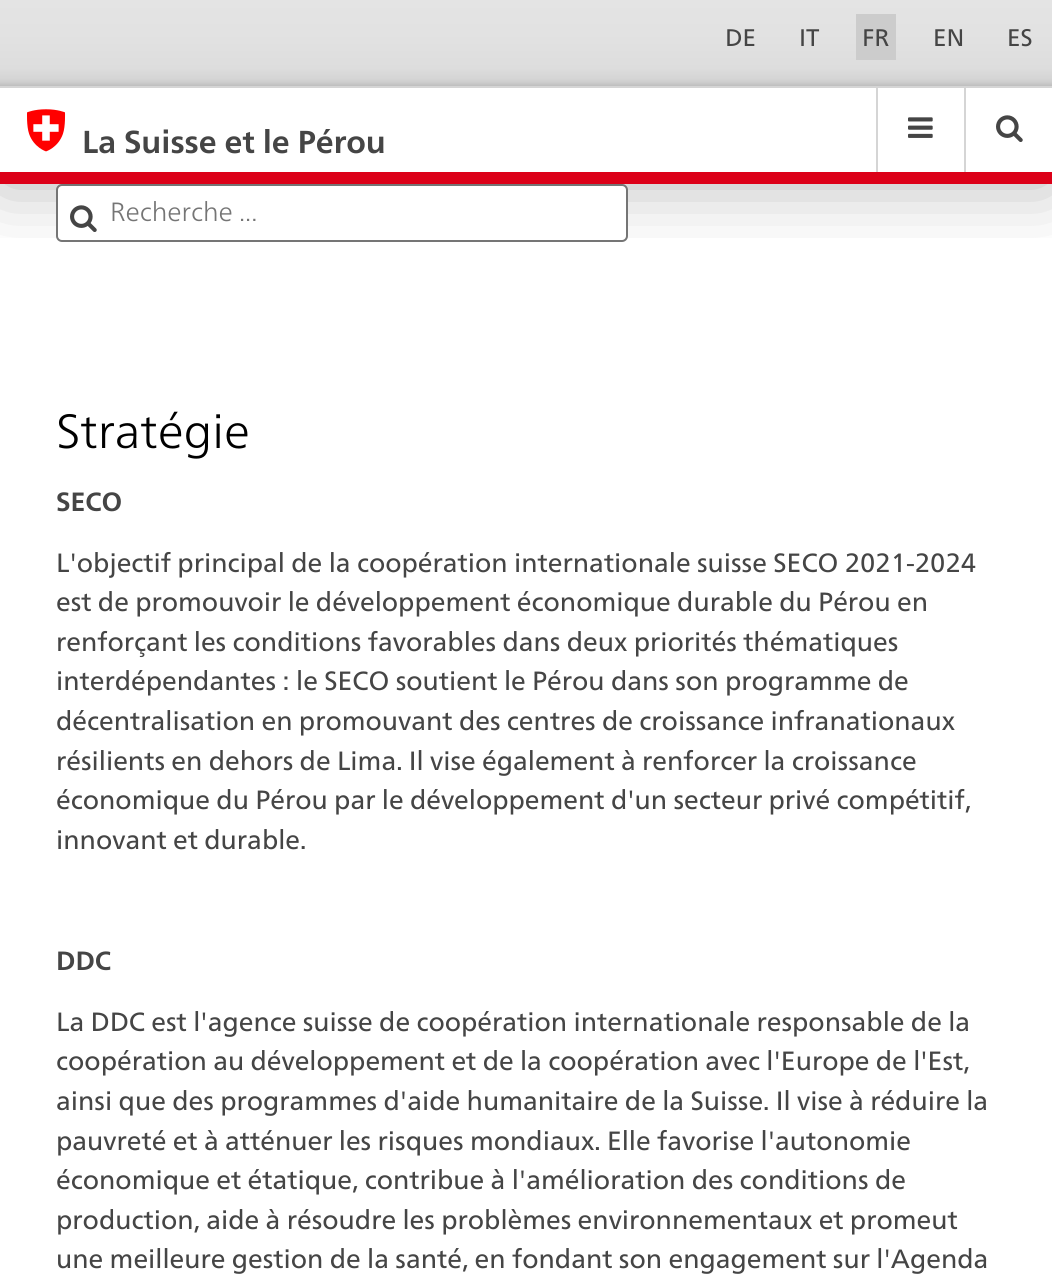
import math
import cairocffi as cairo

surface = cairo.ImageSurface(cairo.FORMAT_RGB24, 1052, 1285)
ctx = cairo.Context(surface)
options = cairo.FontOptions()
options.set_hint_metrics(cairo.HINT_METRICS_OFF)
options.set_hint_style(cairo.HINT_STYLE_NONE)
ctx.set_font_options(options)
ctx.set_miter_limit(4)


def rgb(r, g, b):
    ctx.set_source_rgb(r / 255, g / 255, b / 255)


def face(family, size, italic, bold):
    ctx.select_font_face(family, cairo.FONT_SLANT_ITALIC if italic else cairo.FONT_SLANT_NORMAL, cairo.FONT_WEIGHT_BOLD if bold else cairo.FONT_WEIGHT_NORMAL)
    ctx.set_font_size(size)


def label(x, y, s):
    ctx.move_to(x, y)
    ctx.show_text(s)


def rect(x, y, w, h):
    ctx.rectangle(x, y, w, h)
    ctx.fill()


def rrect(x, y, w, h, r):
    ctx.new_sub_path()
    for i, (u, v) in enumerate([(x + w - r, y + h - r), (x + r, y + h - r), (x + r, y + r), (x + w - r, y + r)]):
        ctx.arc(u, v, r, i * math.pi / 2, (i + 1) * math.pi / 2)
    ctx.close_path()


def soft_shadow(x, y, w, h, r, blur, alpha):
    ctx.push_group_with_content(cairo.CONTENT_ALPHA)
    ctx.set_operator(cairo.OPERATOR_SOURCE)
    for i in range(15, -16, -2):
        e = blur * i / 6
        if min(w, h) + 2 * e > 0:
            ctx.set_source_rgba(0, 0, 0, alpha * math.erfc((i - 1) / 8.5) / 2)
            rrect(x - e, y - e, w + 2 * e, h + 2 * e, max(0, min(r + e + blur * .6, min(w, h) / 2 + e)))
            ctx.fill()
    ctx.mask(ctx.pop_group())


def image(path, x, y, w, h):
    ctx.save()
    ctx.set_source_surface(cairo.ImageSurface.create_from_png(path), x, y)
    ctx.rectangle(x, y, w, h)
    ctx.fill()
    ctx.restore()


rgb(255, 255, 255)
ctx.paint()
ctx.save()
ctx.rectangle(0, 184, 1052, 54)
ctx.clip()
rgb(0, 0, 0)
soft_shadow(0, 88, 1052, 96, 0, 36, 0.3)
ctx.restore()
gradient = cairo.LinearGradient(526, 0, 526, 86)
gradient.add_color_stop_rgba(0, 0.894, 0.894, 0.894, 1)
gradient.add_color_stop_rgba(0.39, 0.886, 0.886, 0.886, 1)
gradient.add_color_stop_rgba(0.79, 0.867, 0.867, 0.867, 1)
gradient.add_color_stop_rgba(0.91, 0.835, 0.835, 0.835, 1)
gradient.add_color_stop_rgba(0.95, 0.812, 0.812, 0.812, 1)
gradient.add_color_stop_rgba(1, 0.745, 0.745, 0.745, 1)
ctx.set_source(gradient)
rect(0, 0, 1052, 86)
rgb(213, 213, 213)
rect(0, 86, 1052, 2)
face('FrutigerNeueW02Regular', 24, 0, 0)
rgb(69, 69, 69)
label(725, 46, 'DE')
label(799, 46, 'IT')
rgb(204, 204, 204)
rect(856, 14, 40, 46)
rgb(69, 69, 69)
label(862, 46, 'FR')
label(933, 46, 'EN')
label(1007, 46, 'ES')
rgb(220, 0, 24)
rect(0, 172, 1052, 12)
image('image0.png', 27, 109, 39, 43)
face('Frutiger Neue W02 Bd', 31.75, 0, 1)
rgb(69, 69, 69)
label(82, 153, 'La Suisse et le Pérou')
rgb(213, 213, 213)
rect(876, 88, 2, 84)
image('image1.png', 908, 117, 25, 21)
rect(964, 88, 2, 84)
image('image2.png', 996, 115, 27, 27)
rgb(255, 255, 255)
rrect(57, 185, 570, 56, 5)
ctx.fill_preserve()
rgb(117, 117, 117)
ctx.stroke()
image('image2.png', 70, 205, 27, 27)
face('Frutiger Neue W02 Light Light', 26.4, 0, 0)
label(110, 221, 'Recherche ...')
face('Frutiger Neue W02 Light Light', 48, 0, 0)
rgb(0, 0, 0)
label(56, 448, 'Stratégie')
face('Frutiger Neue W02 Bd', 26.4, 0, 1)
rgb(69, 69, 69)
label(56, 511, 'SECO')
face('FrutigerNeueW02Regular', 26.4, 0, 0)
label(56, 572, 'L\'objectif principal de la coopération internationale suisse SECO 2021-2024')
label(56, 611, 'est de promouvoir le développement économique durable du Pérou en')
label(56, 651, 'renforçant les conditions favorables dans deux priorités thématiques')
label(56, 690, 'interdépendantes : le SECO soutient le Pérou dans son programme de')
label(56, 730, 'décentralisation en promouvant des centres de croissance infranationaux')
label(56, 770, 'résilients en dehors de Lima. Il vise également à renforcer la croissance')
label(56, 809, 'économique du Pérou par le développement d\'un secteur privé compétitif,')
label(56, 849, 'innovant et durable.')
face('Frutiger Neue W02 Bd', 26.4, 0, 1)
label(56, 970, 'DDC')
face('FrutigerNeueW02Regular', 26.4, 0, 0)
label(56, 1031, 'La DDC est l\'agence suisse de coopération internationale responsable de la')
label(56, 1070, 'coopération au développement et de la coopération avec l\'Europe de l\'Est,')
label(56, 1110, 'ainsi que des programmes d\'aide humanitaire de la Suisse. Il vise à réduire la')
label(56, 1150, 'pauvreté et à atténuer les risques mondiaux. Elle favorise l\'autonomie')
label(56, 1189, 'économique et étatique, contribue à l\'amélioration des conditions de')
label(56, 1229, 'production, aide à résoudre les problèmes environnementaux et promeut')
label(56, 1268, 'une meilleure gestion de la santé, en fondant son engagement sur l\'Agenda')
surface.write_to_png('render.png')
